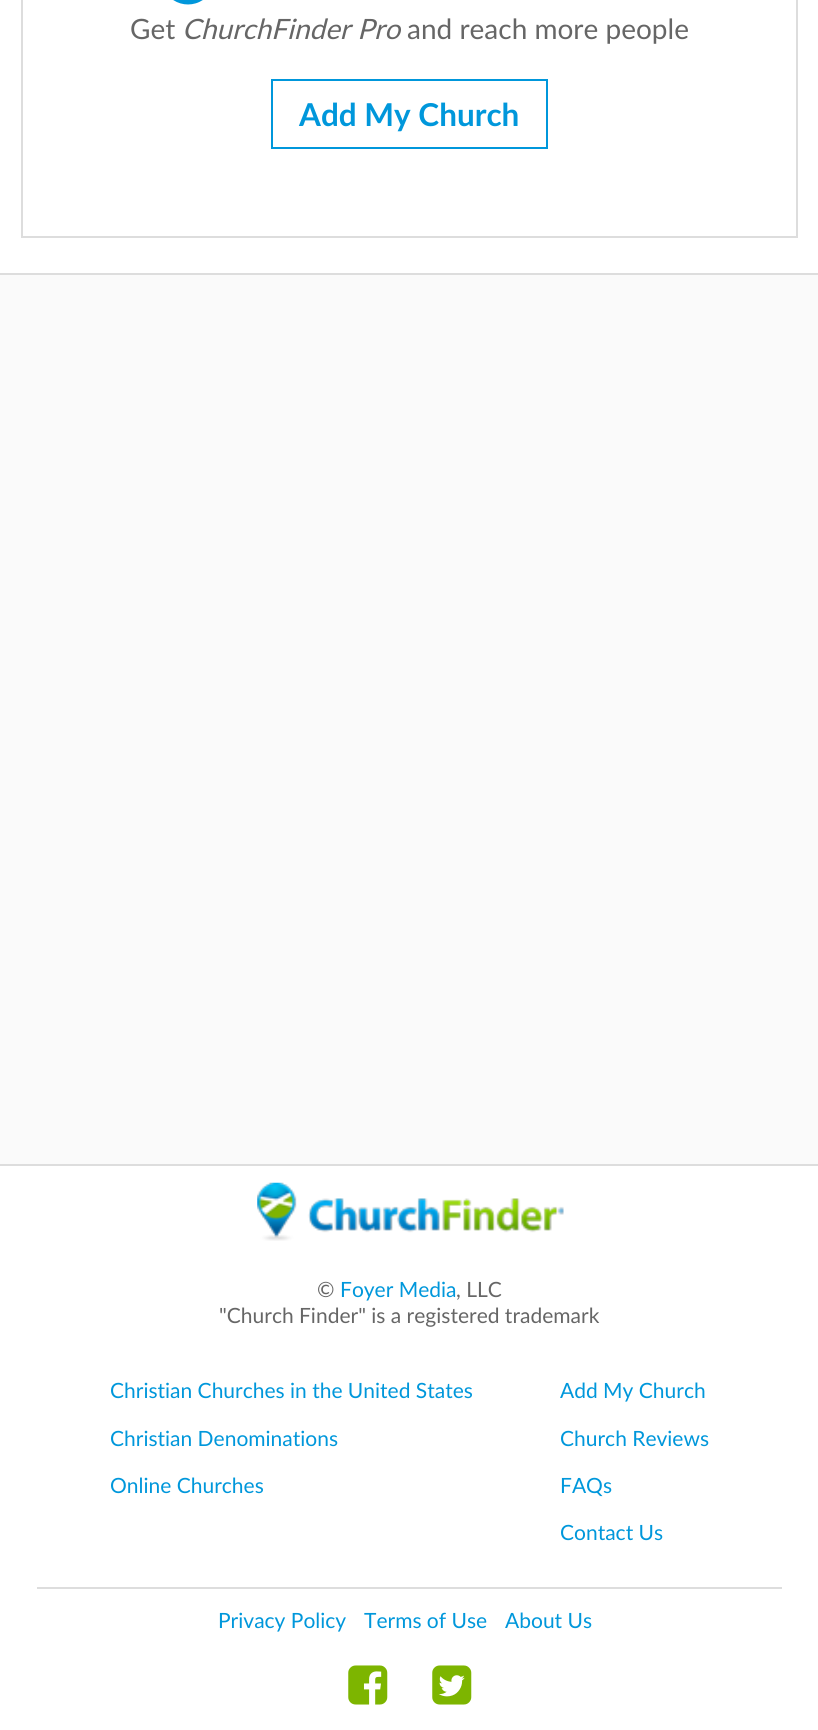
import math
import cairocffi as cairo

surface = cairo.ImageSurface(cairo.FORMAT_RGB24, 818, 1730)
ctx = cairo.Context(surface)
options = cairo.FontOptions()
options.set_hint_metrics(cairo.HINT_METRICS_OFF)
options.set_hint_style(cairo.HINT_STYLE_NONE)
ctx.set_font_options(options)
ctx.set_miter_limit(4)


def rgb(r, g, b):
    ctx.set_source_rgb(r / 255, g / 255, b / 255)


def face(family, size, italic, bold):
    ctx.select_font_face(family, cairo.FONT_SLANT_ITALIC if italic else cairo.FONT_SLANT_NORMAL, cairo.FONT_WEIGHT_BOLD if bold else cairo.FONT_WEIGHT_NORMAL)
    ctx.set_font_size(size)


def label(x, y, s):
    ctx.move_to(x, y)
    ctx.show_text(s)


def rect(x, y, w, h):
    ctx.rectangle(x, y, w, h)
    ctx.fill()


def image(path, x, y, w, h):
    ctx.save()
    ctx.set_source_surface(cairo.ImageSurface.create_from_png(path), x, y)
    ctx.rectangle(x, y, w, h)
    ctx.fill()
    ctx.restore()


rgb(255, 255, 255)
ctx.paint()
ctx.rectangle(22, -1, 775, 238)
rgb(221, 221, 221)
ctx.stroke()
image('image0.png', 173, 0, 30, 5)
face('Lato', 28, 0, 0)
rgb(102, 102, 102)
label(130, 39, 'Get')
face('Lato', 28, 1, 0)
label(182, 39, 'ChurchFinder Pro')
face('Lato', 28, 0, 0)
label(407, 39, 'and reach more people')
ctx.rectangle(272, 80, 275, 68)
rgb(0, 151, 219)
ctx.stroke()
face('Lato', 31.5, 0, 1)
label(299, 126, 'Add My Church')
rgb(250, 250, 250)
rect(0, 275, 818, 889)
rgb(221, 221, 221)
rect(0, 273, 818, 2)
rect(0, 1164, 818, 2)
image('image1.png', 257, 1182, 307, 59)
face('Lato', 21, 0, 0)
rgb(102, 102, 102)
label(317, 1297, '©')
rgb(0, 151, 219)
label(340, 1297, 'Foyer Media')
rgb(102, 102, 102)
label(456, 1297, ', LLC')
label(219, 1323, '"Church Finder" is a registered trademark')
rgb(0, 151, 219)
label(110, 1398, 'Christian Churches in the United States')
label(110, 1446, 'Christian Denominations')
label(110, 1493, 'Online Churches')
label(560, 1398, 'Add My Church')
label(560, 1446, 'Church Reviews')
label(560, 1493, 'FAQs')
label(560, 1540, 'Contact Us')
rgb(221, 221, 221)
rect(37, 1587, 745, 2)
rgb(0, 151, 219)
label(218, 1628, 'Privacy Policy')
label(364, 1628, 'Terms of Use')
label(505, 1628, 'About Us')
image('image2.png', 348, 1665, 40, 40)
image('image3.png', 432, 1665, 40, 40)
surface.write_to_png('render.png')
